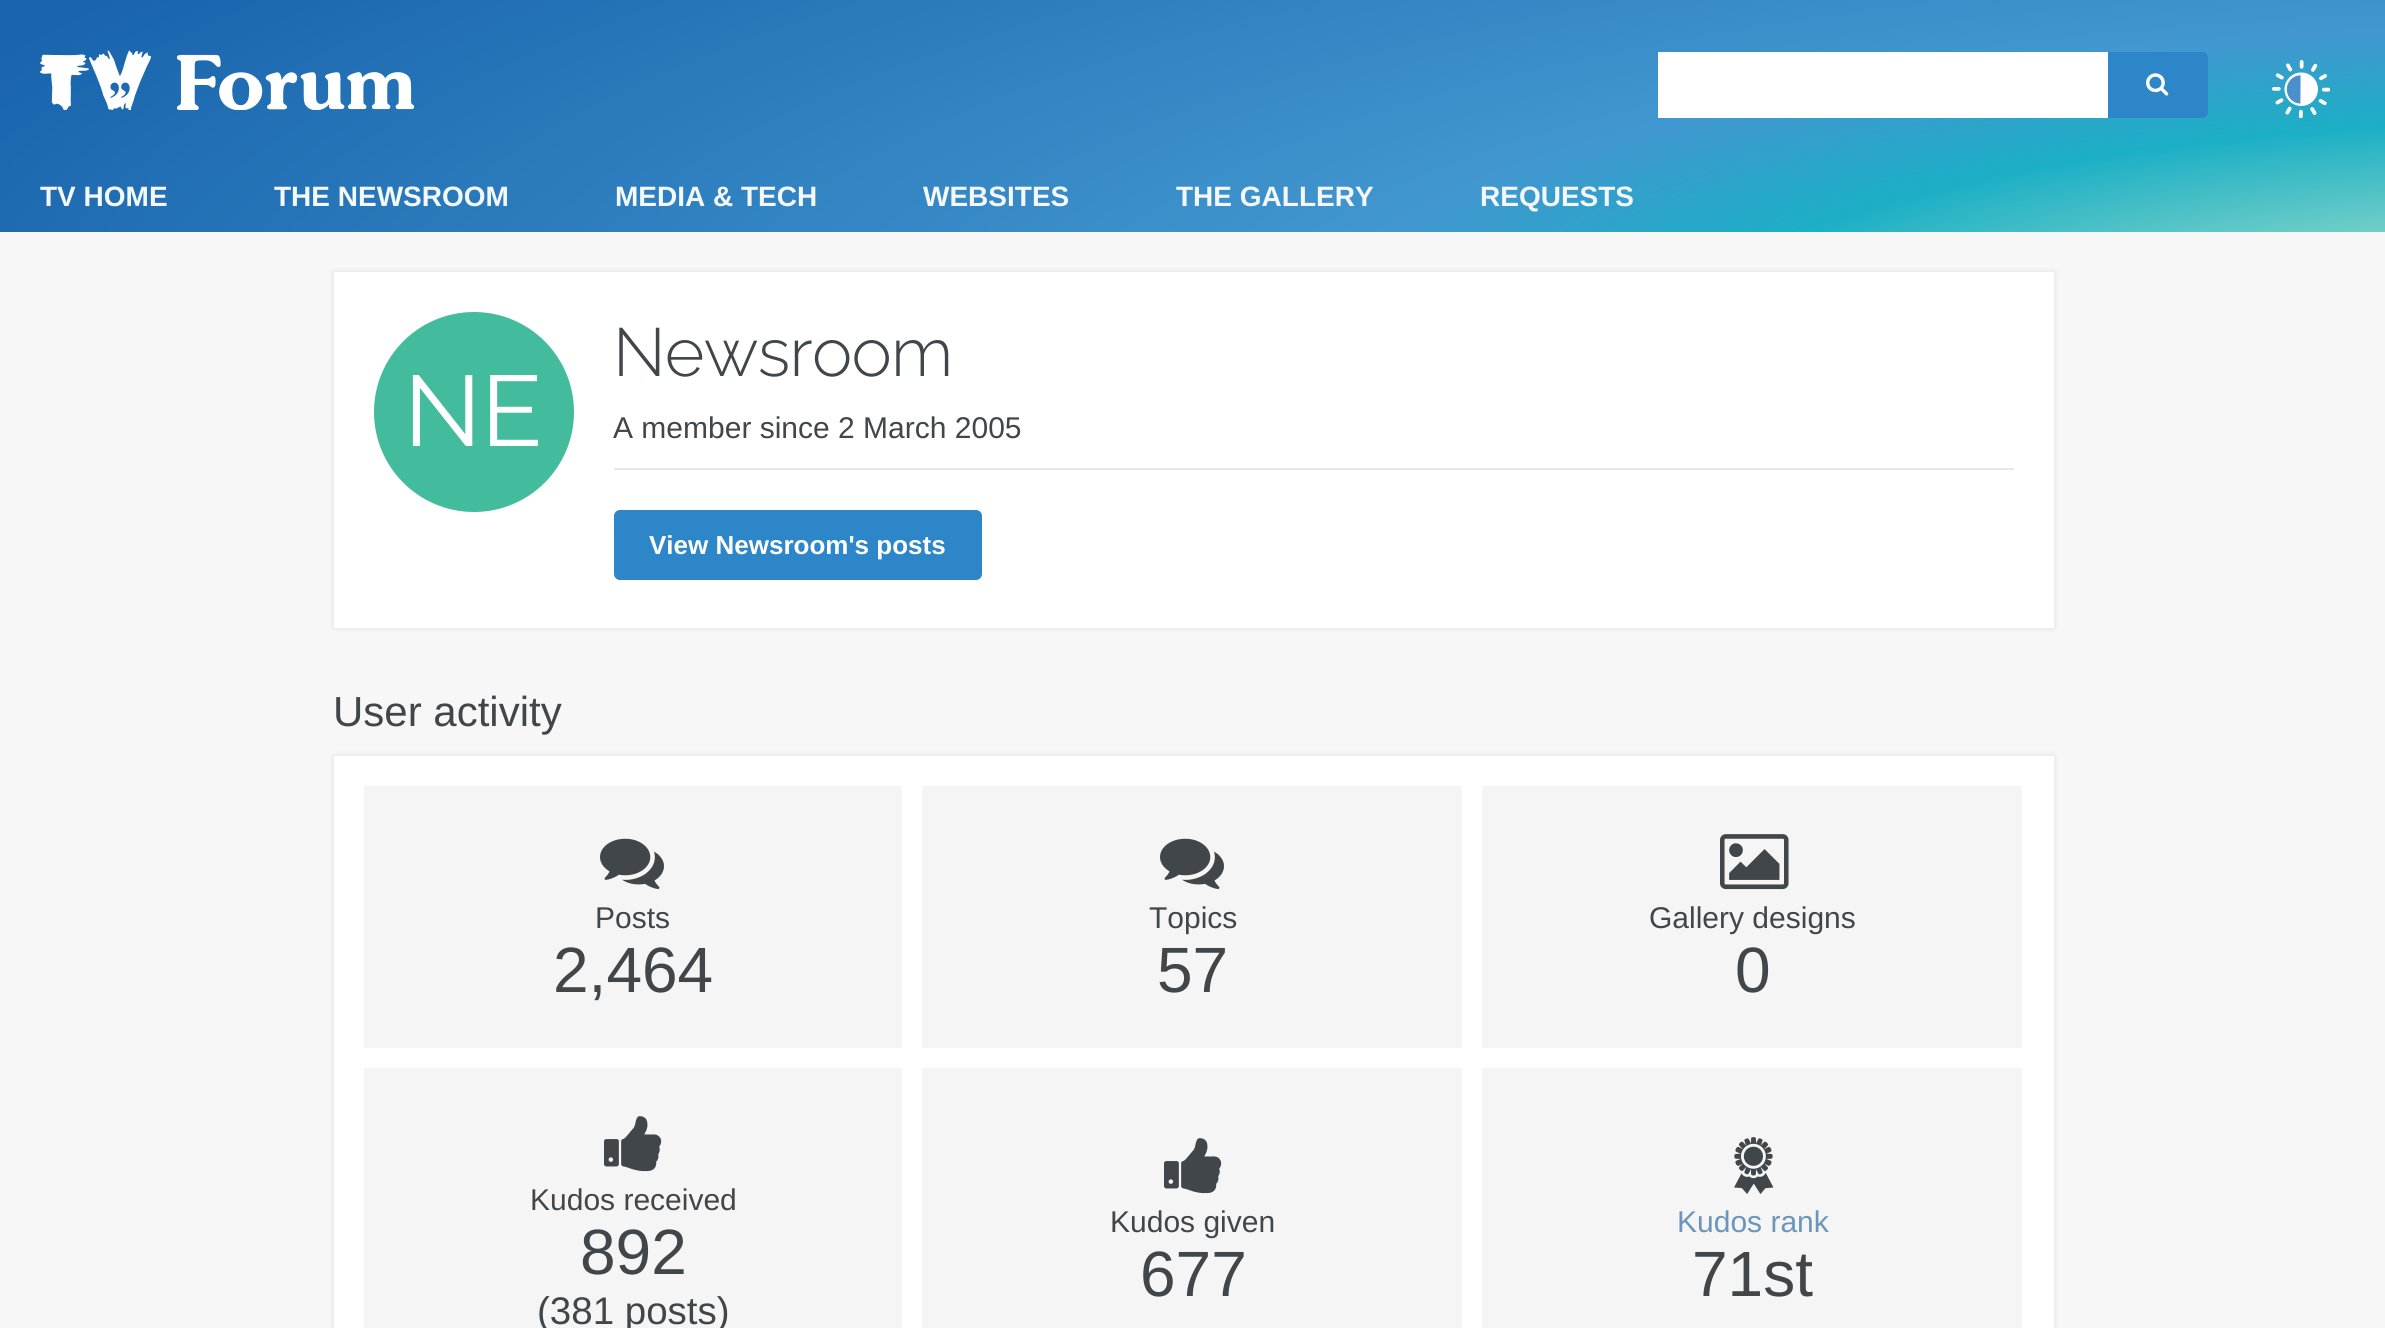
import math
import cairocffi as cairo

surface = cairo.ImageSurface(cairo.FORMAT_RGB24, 2385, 1328)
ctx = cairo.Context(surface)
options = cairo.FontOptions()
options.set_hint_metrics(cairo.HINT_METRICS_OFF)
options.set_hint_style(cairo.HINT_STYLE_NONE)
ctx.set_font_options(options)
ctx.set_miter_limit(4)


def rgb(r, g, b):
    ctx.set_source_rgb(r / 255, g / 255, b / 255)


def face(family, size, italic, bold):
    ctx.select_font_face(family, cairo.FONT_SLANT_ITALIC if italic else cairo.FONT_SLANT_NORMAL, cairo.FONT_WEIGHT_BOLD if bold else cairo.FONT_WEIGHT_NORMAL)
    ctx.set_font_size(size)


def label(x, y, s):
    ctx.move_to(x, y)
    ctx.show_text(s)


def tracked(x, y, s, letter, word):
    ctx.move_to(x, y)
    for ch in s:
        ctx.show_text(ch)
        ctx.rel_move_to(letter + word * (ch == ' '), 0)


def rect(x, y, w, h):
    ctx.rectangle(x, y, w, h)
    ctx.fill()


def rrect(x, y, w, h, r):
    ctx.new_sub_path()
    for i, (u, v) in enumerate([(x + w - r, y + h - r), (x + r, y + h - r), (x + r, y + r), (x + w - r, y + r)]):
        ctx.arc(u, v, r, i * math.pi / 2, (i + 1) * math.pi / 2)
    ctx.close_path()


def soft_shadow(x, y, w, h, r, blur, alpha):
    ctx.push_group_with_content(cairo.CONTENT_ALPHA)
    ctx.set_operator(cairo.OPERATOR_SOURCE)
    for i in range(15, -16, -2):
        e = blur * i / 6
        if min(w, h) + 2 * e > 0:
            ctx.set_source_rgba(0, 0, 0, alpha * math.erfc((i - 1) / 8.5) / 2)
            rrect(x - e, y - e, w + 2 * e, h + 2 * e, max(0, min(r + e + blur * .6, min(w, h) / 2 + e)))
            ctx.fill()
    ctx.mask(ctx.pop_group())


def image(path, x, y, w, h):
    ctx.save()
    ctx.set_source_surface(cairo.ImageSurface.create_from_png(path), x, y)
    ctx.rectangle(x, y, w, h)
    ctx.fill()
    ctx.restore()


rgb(247, 247, 247)
ctx.paint()
gradient = cairo.RadialGradient(0, 0, 0, 0, 0, 1)
gradient.set_matrix(cairo.Matrix(1 / 2835, 0, 0, 1 / 715, -1 * 2577 / 2835, -1 * 350 / 715))
gradient.add_color_stop_rgba(0, 0.859, 0.965, 0.784, 1)
gradient.add_color_stop_rgba(0.32, 0.11, 0.686, 0.776, 1)
gradient.add_color_stop_rgba(0.45, 0.255, 0.592, 0.812, 1)
gradient.add_color_stop_rgba(1, 0.098, 0.392, 0.678, 1)
ctx.set_source(gradient)
rect(0, 0, 2385, 232)
image('image0.png', 40, 50, 375, 60)
rgb(255, 255, 255)
rect(1658, 52, 450, 66)
rgb(45, 134, 199)
ctx.new_path()
ctx.move_to(2108, 52)
ctx.line_to(2202, 52)
ctx.curve_to(2205.5, 52, 2208, 54.5, 2208, 58)
ctx.line_to(2208, 112)
ctx.curve_to(2208, 115.5, 2205.5, 118, 2202, 118)
ctx.line_to(2108, 118)
ctx.close_path()
ctx.fill()
image('image1.png', 2146, 73, 23, 23)
image('image2.png', 2272, 60, 58, 58)
face('Liberation Sans', 28, 0, 1)
rgb(244, 248, 251)
label(40, 206, 'TV HOME')
label(274, 206, 'THE NEWSROOM')
label(615, 206, 'MEDIA & TECH')
label(923, 206, 'WEBSITES')
label(1176, 206, 'THE GALLERY')
label(1480, 206, 'REQUESTS')
rgb(0, 0, 0)
soft_shadow(334, 272, 1720, 356, 0, 3, 0.1)
rgb(255, 255, 255)
rect(334, 272, 1720, 356)
face('Raleway Light', 68, 0, 0)
rgb(65, 70, 75)
tracked(613, 376, 'Newsroom', -0.75, 0)
rgb(66, 188, 156)
ctx.new_path()
ctx.arc(474, 412, 100, 0, 2 * math.pi)
ctx.fill()
face('Raleway', 100, 0, 0)
rgb(255, 255, 255)
label(404, 446, 'NE')
face('Liberation Sans', 30, 0, 0)
rgb(65, 70, 75)
label(613, 438, 'A member since 2 March 2005')
rgb(232, 232, 232)
rect(614, 468, 1400, 2)
rgb(45, 134, 199)
rrect(614, 510, 368, 70, 6)
ctx.fill()
face('Liberation Sans', 26, 0, 1)
rgb(255, 255, 255)
label(649, 554, 'View Newsroom\'s posts')
face('Liberation Sans', 42, 0, 0)
rgb(65, 70, 75)
label(333, 726, 'User activity')
rgb(0, 0, 0)
soft_shadow(334, 756, 1720, 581, 0, 3, 0.1)
rgb(255, 255, 255)
rect(334, 756, 1720, 572)
rgb(245, 245, 245)
rect(364, 786, 538, 262)
image('image3.png', 600, 838, 64, 52)
face('Liberation Sans', 30, 0, 0)
rgb(65, 70, 75)
label(595, 928, 'Posts')
face('Liberation Sans', 64, 0, 0)
label(553, 992, '2,464')
rgb(245, 245, 245)
rect(922, 786, 540, 262)
image('image3.png', 1160, 838, 64, 52)
face('Liberation Sans', 30, 0, 0)
rgb(65, 70, 75)
label(1149, 928, 'Topics')
face('Liberation Sans', 64, 0, 0)
label(1157, 992, '57')
rgb(245, 245, 245)
rect(1482, 786, 540, 262)
image('image4.png', 1720, 834, 69, 56)
face('Liberation Sans', 30, 0, 0)
rgb(65, 70, 75)
label(1649, 928, 'Gallery designs')
face('Liberation Sans', 64, 0, 0)
label(1735, 992, '0')
rgb(245, 245, 245)
rect(364, 1068, 538, 260)
image('image5.png', 604, 1116, 58, 56)
face('Liberation Sans', 30, 0, 0)
rgb(65, 70, 75)
label(530, 1210, 'Kudos received')
face('Liberation Sans', 64, 0, 0)
label(580, 1274, '892')
face('Liberation Sans', 38.5, 0, 0)
label(537, 1324, '(381 posts)')
rgb(245, 245, 245)
rect(922, 1068, 540, 260)
image('image5.png', 1164, 1138, 58, 56)
face('Liberation Sans', 30, 0, 0)
rgb(65, 70, 75)
label(1110, 1232, 'Kudos given')
face('Liberation Sans', 64, 0, 0)
label(1140, 1296, '677')
rgb(245, 245, 245)
rect(1482, 1068, 540, 260)
image('image6.png', 1734, 1137, 40, 57)
face('Liberation Sans', 30, 0, 0)
rgb(107, 149, 187)
label(1677, 1232, 'Kudos rank')
face('Liberation Sans', 64, 0, 0)
rgb(65, 70, 75)
label(1692, 1296, '71st')
surface.write_to_png('render.png')
